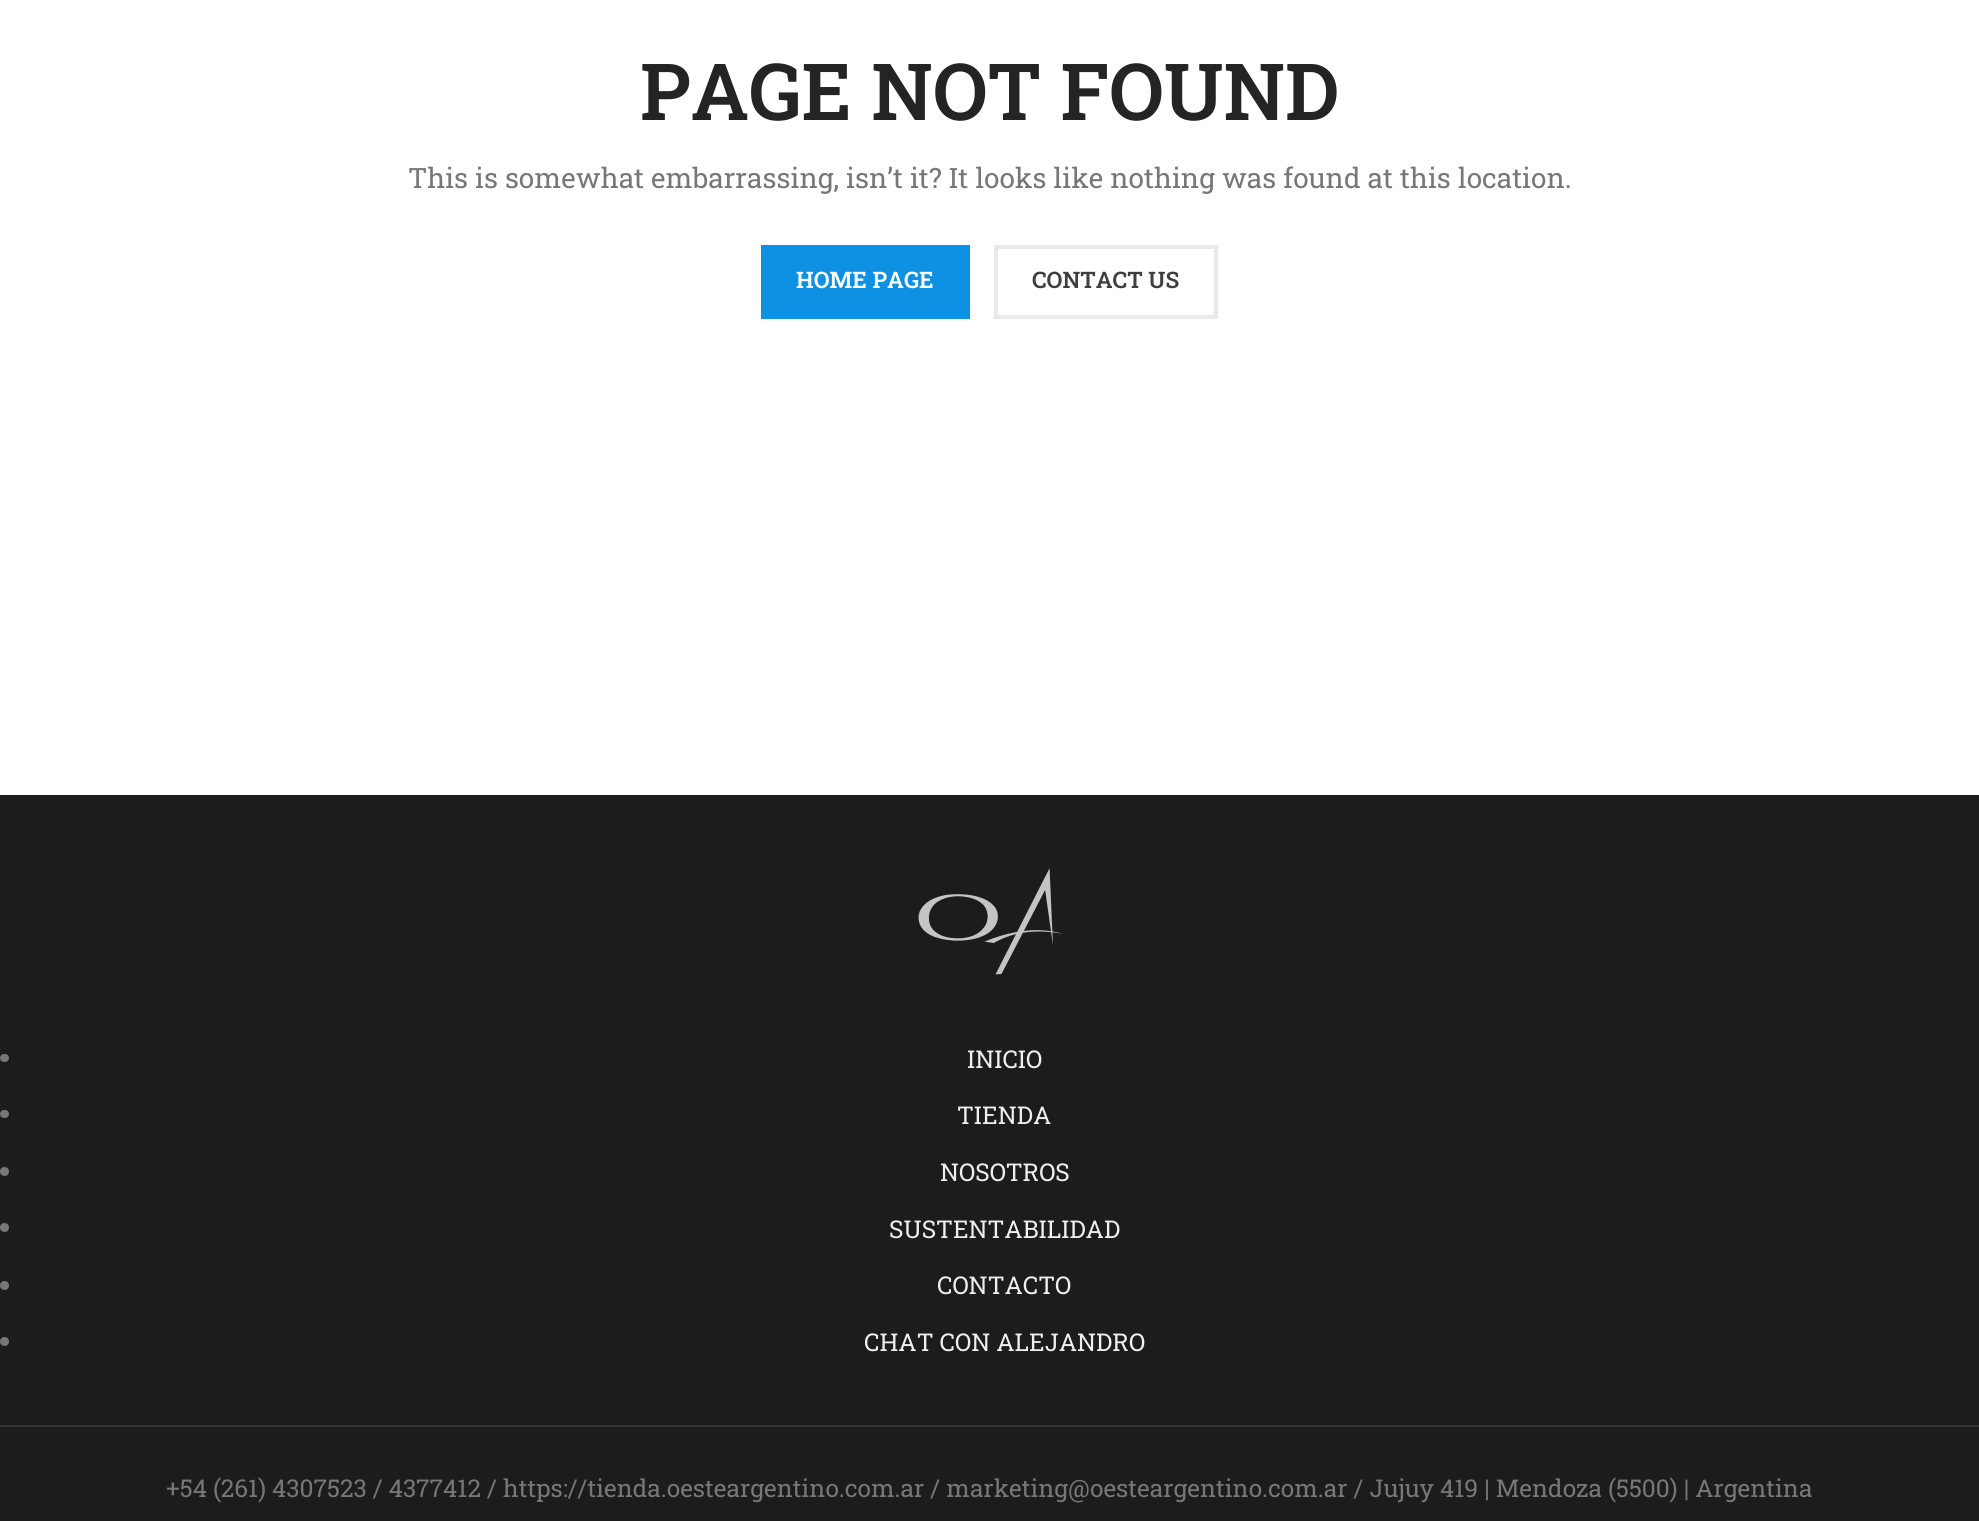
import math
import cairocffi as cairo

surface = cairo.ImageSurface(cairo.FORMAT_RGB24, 1979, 1521)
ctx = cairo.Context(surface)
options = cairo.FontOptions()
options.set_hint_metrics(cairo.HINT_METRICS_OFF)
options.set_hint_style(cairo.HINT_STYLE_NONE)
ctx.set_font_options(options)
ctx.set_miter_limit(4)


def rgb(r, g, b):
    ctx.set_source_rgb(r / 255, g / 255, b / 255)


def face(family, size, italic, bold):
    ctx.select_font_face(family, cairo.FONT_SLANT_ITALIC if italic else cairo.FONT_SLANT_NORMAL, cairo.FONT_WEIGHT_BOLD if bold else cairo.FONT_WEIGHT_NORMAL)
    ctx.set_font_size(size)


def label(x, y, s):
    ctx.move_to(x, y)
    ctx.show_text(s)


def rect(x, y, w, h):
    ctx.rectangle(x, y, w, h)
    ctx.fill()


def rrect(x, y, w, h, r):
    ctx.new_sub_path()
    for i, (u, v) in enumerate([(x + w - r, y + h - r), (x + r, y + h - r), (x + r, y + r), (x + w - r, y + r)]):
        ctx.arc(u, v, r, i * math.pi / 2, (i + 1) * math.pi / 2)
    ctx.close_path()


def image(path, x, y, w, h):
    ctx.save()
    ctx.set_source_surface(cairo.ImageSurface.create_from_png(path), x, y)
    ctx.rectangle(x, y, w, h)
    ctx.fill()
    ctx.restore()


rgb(255, 255, 255)
ctx.paint()
face('Roboto Slab SemiBold', 78.75, 0, 0)
rgb(36, 36, 36)
label(640, 120, 'PAGE NOT FOUND')
face('Roboto Slab', 28, 0, 0)
rgb(119, 119, 119)
label(408, 188, 'This is somewhat embarrassing, isn’t it? It looks like nothing was found at this location.')
rgb(15, 145, 227)
rect(761, 245, 209, 74)
face('Roboto Slab SemiBold', 22.75, 0, 0)
rgb(255, 255, 255)
label(796, 288, 'HOME PAGE')
ctx.rectangle(996, 247, 220, 70)
rgb(233, 233, 233)
ctx.set_line_width(4)
ctx.stroke()
rgb(62, 62, 62)
label(1032, 288, 'CONTACT US')
rgb(28, 28, 28)
rect(0, 795, 1979, 726)
image('image0.png', 918, 868, 145, 107)
rgb(119, 119, 119)
rrect(0, 1054, 9, 8, 4)
ctx.fill()
face('Roboto Slab', 24.5, 0, 0)
rgb(239, 239, 239)
label(967, 1068, 'INICIO')
rgb(119, 119, 119)
rrect(0, 1110, 9, 8, 4)
ctx.fill()
rgb(239, 239, 239)
label(957, 1124, 'TIENDA')
rgb(119, 119, 119)
ctx.new_path()
ctx.arc(4.5, 1171.5, 4.5, 0, 2 * math.pi)
ctx.fill()
rgb(239, 239, 239)
label(940, 1181, 'NOSOTROS')
rgb(119, 119, 119)
ctx.new_path()
ctx.arc(4.5, 1227.5, 4.5, 0, 2 * math.pi)
ctx.fill()
rgb(239, 239, 239)
label(889, 1238, 'SUSTENTABILIDAD')
rgb(119, 119, 119)
ctx.new_path()
ctx.arc(4.5, 1285.5, 4.5, 0, 2 * math.pi)
ctx.fill()
rgb(239, 239, 239)
label(937, 1294, 'CONTACTO')
rgb(119, 119, 119)
ctx.new_path()
ctx.arc(4.5, 1341.5, 4.5, 0, 2 * math.pi)
ctx.fill()
rgb(239, 239, 239)
label(864, 1351, 'CHAT CON ALEJANDRO')
rgb(51, 51, 51)
rect(0, 1425, 1979, 2)
rgb(119, 119, 119)
label(166, 1497, '+54 (261) 4307523 / 4377412 / https://tienda.oesteargentino.com.ar / marketing@oesteargentino.com.ar / Jujuy 419 | Mendoza (5500) | Argentina')
surface.write_to_png('render.png')
